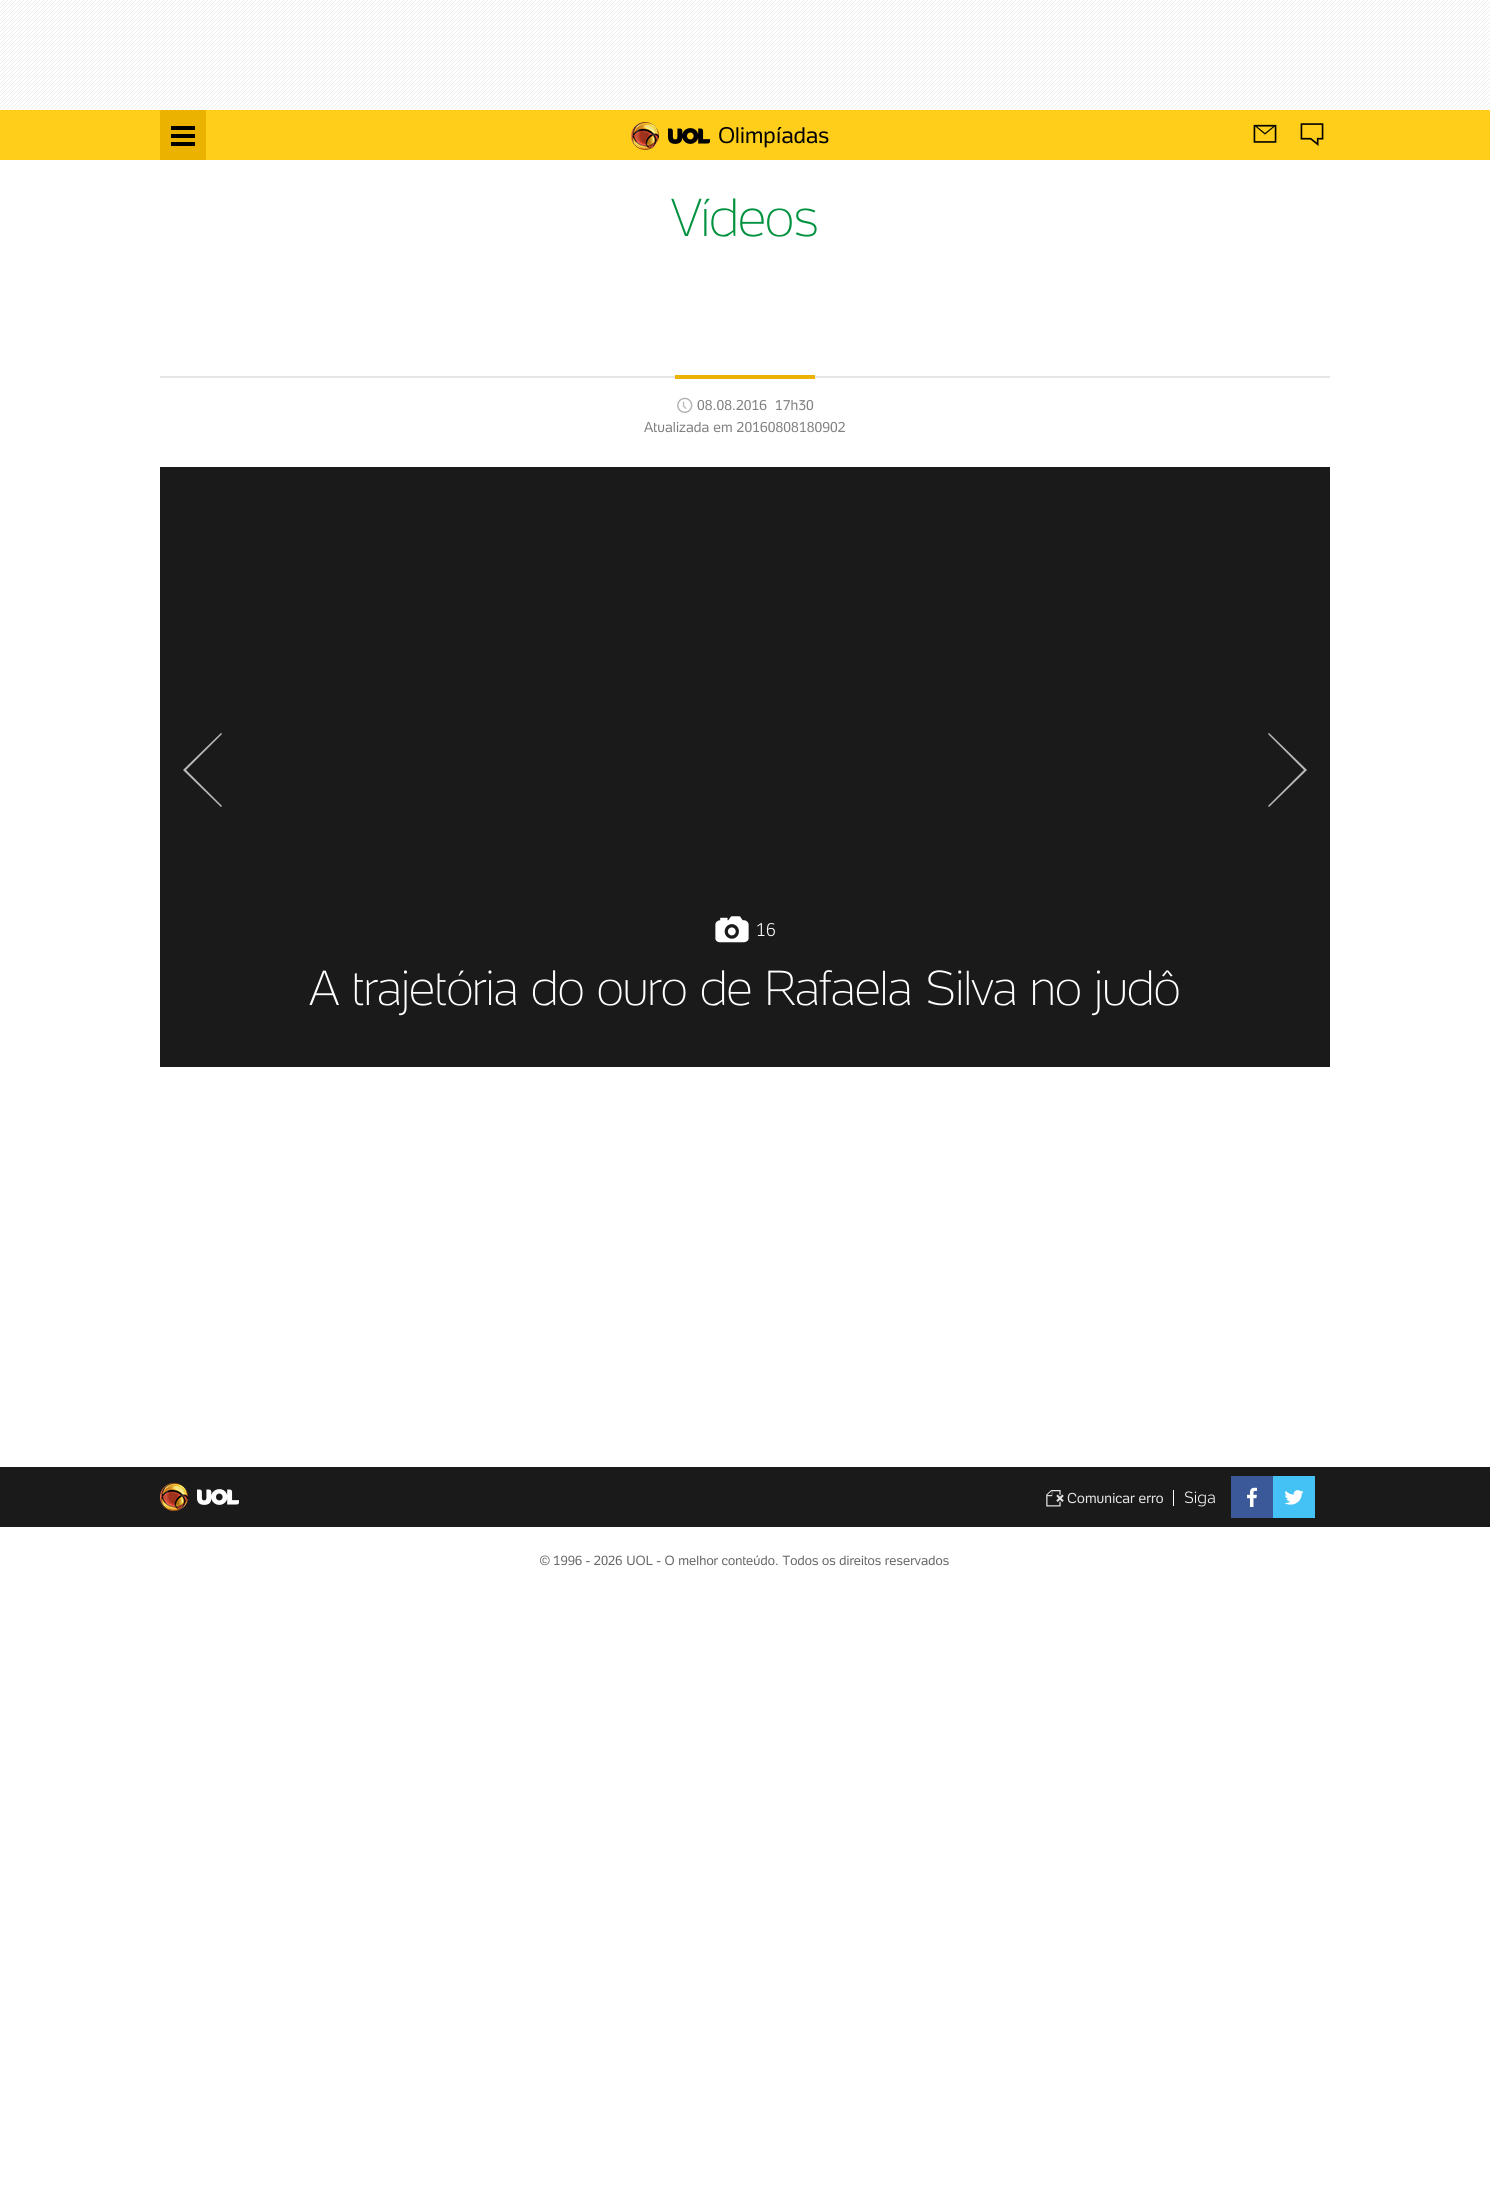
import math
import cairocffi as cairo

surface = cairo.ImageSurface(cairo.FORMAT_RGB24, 1490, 2185)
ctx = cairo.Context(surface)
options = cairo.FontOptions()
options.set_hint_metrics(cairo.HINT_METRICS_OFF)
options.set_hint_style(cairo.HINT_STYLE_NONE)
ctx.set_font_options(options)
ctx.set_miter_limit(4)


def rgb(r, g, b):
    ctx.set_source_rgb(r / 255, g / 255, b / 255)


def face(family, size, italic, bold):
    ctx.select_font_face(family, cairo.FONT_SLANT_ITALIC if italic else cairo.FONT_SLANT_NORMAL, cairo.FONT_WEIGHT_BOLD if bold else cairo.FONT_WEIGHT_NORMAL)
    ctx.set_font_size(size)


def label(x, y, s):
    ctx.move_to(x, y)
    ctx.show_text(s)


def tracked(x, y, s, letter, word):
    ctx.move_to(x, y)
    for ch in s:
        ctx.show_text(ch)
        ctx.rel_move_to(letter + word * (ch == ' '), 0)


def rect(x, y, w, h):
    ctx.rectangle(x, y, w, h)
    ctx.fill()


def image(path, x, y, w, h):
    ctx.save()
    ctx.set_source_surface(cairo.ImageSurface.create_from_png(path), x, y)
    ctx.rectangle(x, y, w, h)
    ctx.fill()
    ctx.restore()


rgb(255, 255, 255)
ctx.paint()
image('image0.png', 0, 0, 1490, 110)
rgb(255, 206, 26)
rect(0, 110, 1490, 50)
rgb(236, 178, 0)
rect(160, 110, 46, 50)
image('image1.png', 171, 126, 24, 20)
image('image2.png', 631, 122, 28, 28)
image('image3.png', 668, 128, 42, 16)
face('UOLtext', 22, 0, 0)
rgb(0, 0, 0)
label(718, 143, 'Olimpíadas')
image('image4.png', 1253, 124, 24, 19)
image('image5.png', 1300, 123, 24, 23)
face('UOLtext Thin', 52, 0, 0)
rgb(0, 146, 62)
label(672, 236, 'Vídeos')
rgb(230, 230, 230)
rect(160, 376, 1170, 2)
rgb(236, 178, 0)
rect(675, 375, 140, 4)
image('image6.png', 677, 397, 16, 16)
face('UOLtext', 14, 0, 0)
rgb(128, 128, 128)
tracked(697, 410, '08.08.2016 17h30', 0, 4)
label(644, 432, 'Atualizada em 20160808180902')
rgb(26, 26, 26)
rect(160, 467, 1170, 600)
rgb(186, 186, 186)
ctx.new_path()
ctx.move_to(221, 807)
ctx.line_to(183, 770)
ctx.line_to(221, 733)
ctx.line_to(222, 734)
ctx.line_to(186, 770)
ctx.line_to(222, 806)
ctx.close_path()
ctx.fill()
ctx.new_path()
ctx.move_to(1269, 807)
ctx.line_to(1307, 770)
ctx.line_to(1269, 733)
ctx.line_to(1268, 734)
ctx.line_to(1304, 770)
ctx.line_to(1268, 806)
ctx.close_path()
ctx.fill()
image('image7.png', 715, 916, 34, 27)
face('UOLtext Light', 18, 0, 0)
rgb(255, 255, 255)
label(756, 936, '16')
face('UOLtext Thin', 48, 0, 0)
label(310, 1005, 'A trajetória do ouro de Rafaela Silva no judô')
rgb(26, 26, 26)
rect(0, 1467, 1490, 60)
image('image8.png', 160, 1483, 28, 28)
image('image9.png', 197, 1489, 42, 16)
rgb(255, 255, 255)
rect(1173, 1490, 1, 16)
image('image10.png', 1046, 1490, 18, 17)
face('UOLtext', 14, 0, 0)
rgb(230, 230, 230)
label(1067, 1503, 'Comunicar erro')
face('UOLtext Light', 16, 0, 0)
rgb(255, 255, 255)
label(1184, 1503, 'Siga')
rgb(59, 89, 152)
rect(1231, 1476, 42, 42)
image('image11.png', 1247, 1487, 10, 20)
rgb(68, 193, 245)
rect(1273, 1476, 42, 42)
image('image12.png', 1284, 1490, 20, 15)
face('UOLtext', 13, 0, 0)
rgb(102, 102, 102)
label(540, 1565, '© 1996 - 2026 UOL - O melhor conteúdo. Todos os direitos reservados')
surface.write_to_png('render.png')
